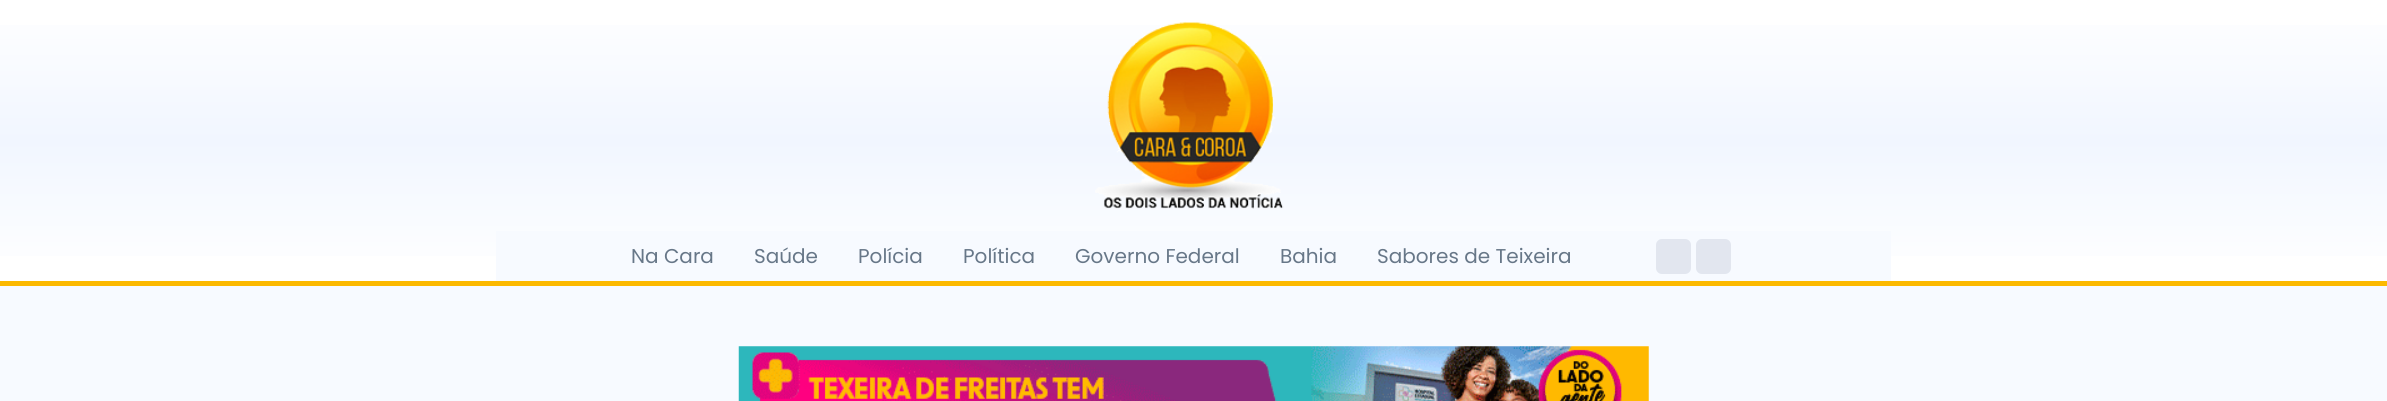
import math
import cairocffi as cairo

surface = cairo.ImageSurface(cairo.FORMAT_RGB24, 2387, 401)
ctx = cairo.Context(surface)
options = cairo.FontOptions()
options.set_hint_metrics(cairo.HINT_METRICS_OFF)
options.set_hint_style(cairo.HINT_STYLE_NONE)
ctx.set_font_options(options)
ctx.set_miter_limit(4)


def rgb(r, g, b):
    ctx.set_source_rgb(r / 255, g / 255, b / 255)


def face(family, size, italic, bold):
    ctx.select_font_face(family, cairo.FONT_SLANT_ITALIC if italic else cairo.FONT_SLANT_NORMAL, cairo.FONT_WEIGHT_BOLD if bold else cairo.FONT_WEIGHT_NORMAL)
    ctx.set_font_size(size)


def label(x, y, s):
    ctx.move_to(x, y)
    ctx.show_text(s)


def rect(x, y, w, h):
    ctx.rectangle(x, y, w, h)
    ctx.fill()


def rrect(x, y, w, h, r):
    ctx.new_sub_path()
    for i, (u, v) in enumerate([(x + w - r, y + h - r), (x + r, y + h - r), (x + r, y + r), (x + w - r, y + r)]):
        ctx.arc(u, v, r, i * math.pi / 2, (i + 1) * math.pi / 2)
    ctx.close_path()


def image(path, x, y, w, h):
    ctx.save()
    ctx.set_source_surface(cairo.ImageSurface.create_from_png(path), x, y)
    ctx.rectangle(x, y, w, h)
    ctx.fill()
    ctx.restore()


rgb(255, 255, 255)
ctx.paint()
gradient = cairo.LinearGradient(1194, 0, 1194, 281)
gradient.add_color_stop_rgba(0, 1, 1, 1, 1)
gradient.add_color_stop_rgba(0.5, 0.945, 0.965, 1, 1)
gradient.add_color_stop_rgba(1, 1, 1, 1, 1)
ctx.set_source(gradient)
rect(0, 25, 2387, 231)
rgb(252, 185, 0)
rect(0, 281, 2387, 5)
image('image0.png', 1095, 21, 189, 188)
rgb(247, 250, 255)
rect(496, 231, 1395, 50)
face('Poppins', 20, 0, 0)
rgb(103, 119, 136)
label(631, 263, 'Na Cara')
label(754, 263, 'Saúde')
label(858, 263, 'Polícia')
label(963, 263, 'Política')
label(1075, 263, 'Governo Federal')
label(1280, 263, 'Bahia')
label(1377, 263, 'Sabores de Teixeira')
rgb(226, 230, 239)
rrect(1656, 239, 35, 35, 6)
ctx.fill()
rrect(1696, 239, 35, 35, 6)
ctx.fill()
rgb(247, 250, 255)
rect(0, 286, 2387, 115)
image('image1.png', 738, 346, 911, 55)
surface.write_to_png('render.png')
